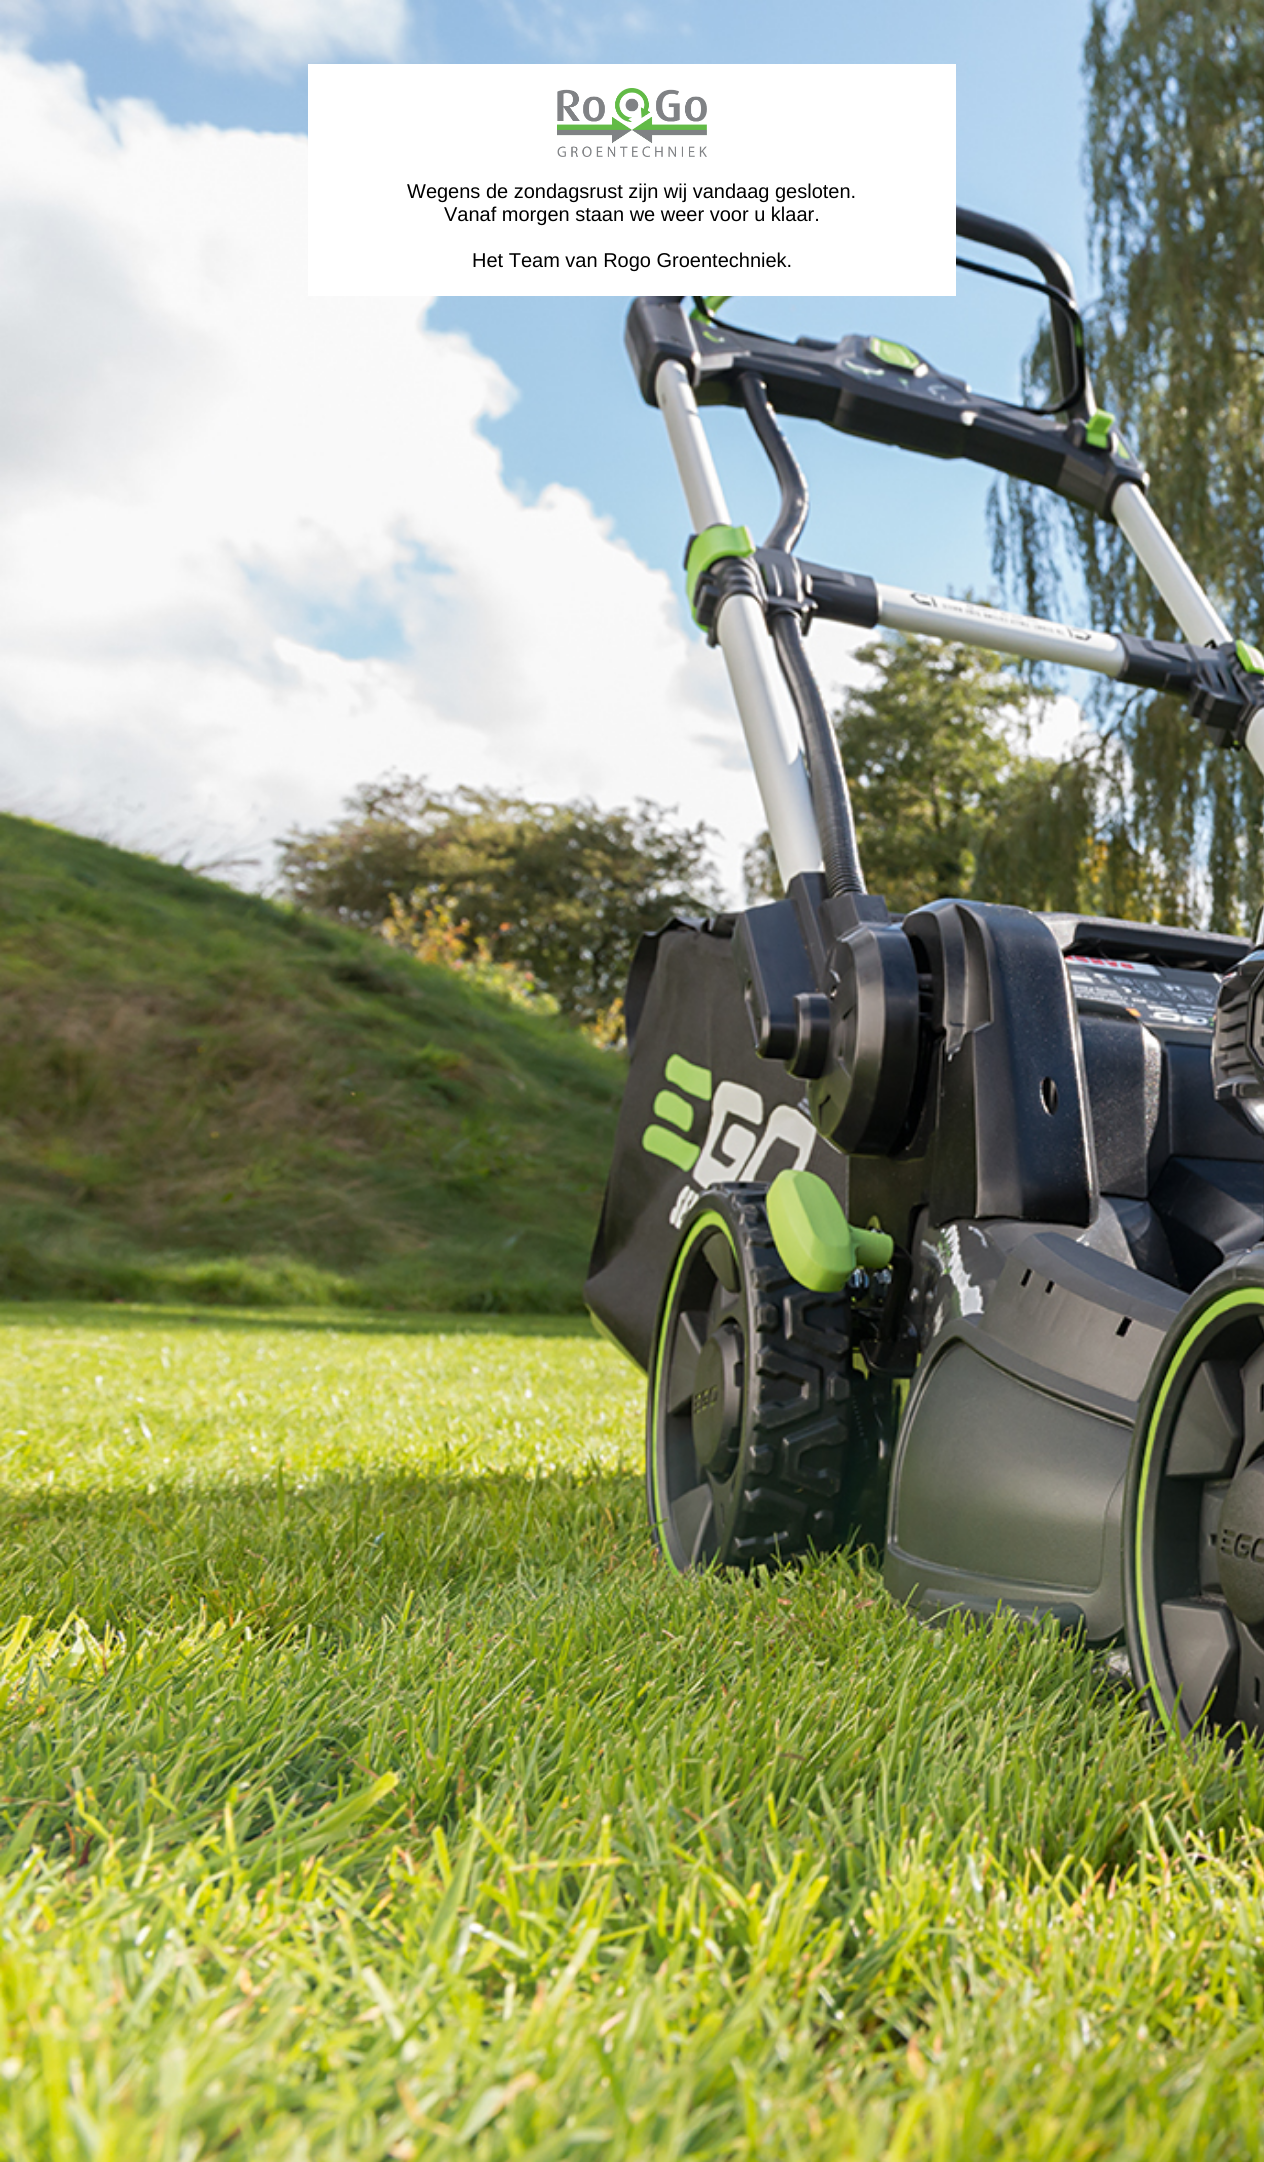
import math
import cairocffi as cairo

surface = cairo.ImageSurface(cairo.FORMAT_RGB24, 1264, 2162)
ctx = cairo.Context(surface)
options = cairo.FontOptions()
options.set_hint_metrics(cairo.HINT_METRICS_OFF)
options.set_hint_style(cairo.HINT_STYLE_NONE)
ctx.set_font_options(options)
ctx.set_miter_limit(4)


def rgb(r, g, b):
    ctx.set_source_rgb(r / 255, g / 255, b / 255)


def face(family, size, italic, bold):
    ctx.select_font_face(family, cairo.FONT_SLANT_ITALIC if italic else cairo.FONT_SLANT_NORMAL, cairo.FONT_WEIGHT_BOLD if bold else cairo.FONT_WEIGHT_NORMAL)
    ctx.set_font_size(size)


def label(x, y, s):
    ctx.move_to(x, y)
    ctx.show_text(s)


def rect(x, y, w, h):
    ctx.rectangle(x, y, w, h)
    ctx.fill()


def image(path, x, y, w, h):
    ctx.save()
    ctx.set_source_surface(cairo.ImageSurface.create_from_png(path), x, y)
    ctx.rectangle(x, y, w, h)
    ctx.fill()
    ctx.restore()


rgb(255, 255, 255)
ctx.paint()
image('image0.png', 0, 0, 1264, 2162)
rgb(255, 255, 255)
rect(308, 64, 648, 232)
image('image1.png', 557, 88, 150, 69)
face('Liberation Sans', 20, 0, 0)
rgb(0, 0, 0)
label(407, 198, 'Wegens de zondagsrust zijn wij vandaag gesloten.')
label(444, 221, 'Vanaf morgen staan we weer voor u klaar.')
label(472, 267, 'Het Team van Rogo Groentechniek.')
surface.write_to_png('render.png')
